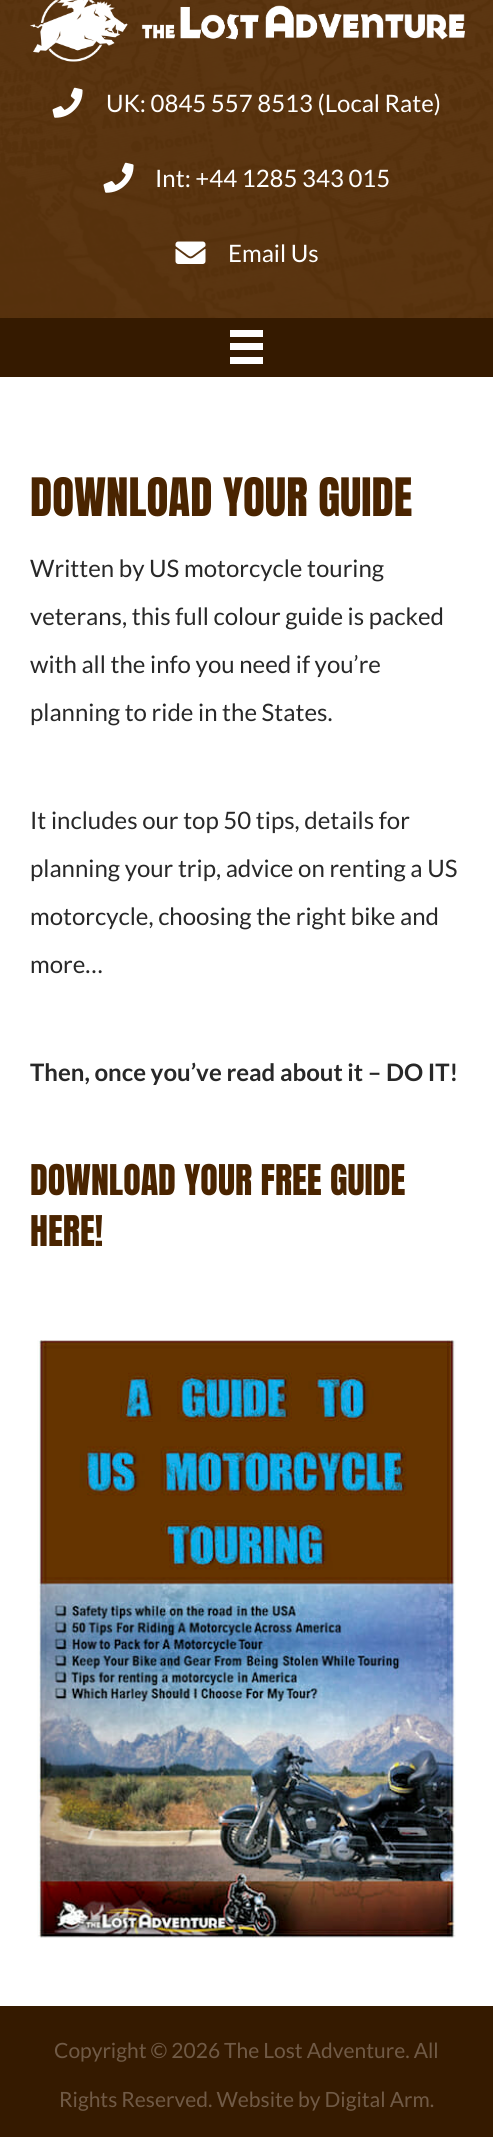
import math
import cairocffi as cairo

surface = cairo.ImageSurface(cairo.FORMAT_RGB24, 493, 2137)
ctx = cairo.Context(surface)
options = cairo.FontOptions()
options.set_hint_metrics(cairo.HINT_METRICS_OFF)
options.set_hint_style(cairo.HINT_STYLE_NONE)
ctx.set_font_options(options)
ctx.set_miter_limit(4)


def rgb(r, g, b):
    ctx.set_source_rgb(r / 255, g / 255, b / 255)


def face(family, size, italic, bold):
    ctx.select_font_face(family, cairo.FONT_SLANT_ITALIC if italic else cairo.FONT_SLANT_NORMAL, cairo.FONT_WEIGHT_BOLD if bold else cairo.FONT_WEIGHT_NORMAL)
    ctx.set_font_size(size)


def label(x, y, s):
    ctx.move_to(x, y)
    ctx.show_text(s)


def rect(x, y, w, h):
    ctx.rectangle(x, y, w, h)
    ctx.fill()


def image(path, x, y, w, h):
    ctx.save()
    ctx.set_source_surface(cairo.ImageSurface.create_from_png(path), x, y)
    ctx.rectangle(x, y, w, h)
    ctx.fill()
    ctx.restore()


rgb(255, 255, 255)
ctx.paint()
image('image0.png', 0, 0, 493, 318)
image('image1.png', 30, 0, 435, 62)
image('image2.png', 52, 87, 31, 31)
face('Lato', 24, 0, 0)
rgb(255, 255, 255)
label(106, 112, 'UK: 0845 557 8513 (Local Rate)')
image('image3.png', 103, 162, 31, 31)
label(155, 187, 'Int: +44 1285 343 015')
image('image4.png', 175, 241, 31, 23)
label(228, 262, 'Email Us')
rgb(53, 26, 0)
rect(0, 318, 493, 59)
rgb(255, 255, 255)
rect(230, 330, 33, 7)
rect(230, 343, 33, 7)
rect(230, 357, 33, 7)
face('Anton', 45, 0, 0)
rgb(74, 36, 0)
label(30, 516, 'DOWNLOAD YOUR GUIDE')
face('Lato', 24, 0, 0)
rgb(40, 40, 40)
label(30, 577, 'Written by US motorcycle touring')
label(30, 625, 'veterans, this full colour guide is packed')
label(30, 673, 'with all the info you need if you’re')
label(30, 721, 'planning to ride in the States.')
label(30, 829, 'It includes our top 50 tips, details for')
label(30, 877, 'planning your trip, advice on renting a US')
label(30, 925, 'motorcycle, choosing the right bike and')
label(30, 973, 'more…')
face('Lato', 24, 0, 1)
label(30, 1081, 'Then, once you’ve read about it – DO IT!')
face('Anton', 36, 0, 0)
rgb(74, 36, 0)
label(30, 1195, 'DOWNLOAD YOUR FREE GUIDE')
label(30, 1246, 'HERE!')
image('image5.png', 37, 1340, 419, 598)
rgb(53, 26, 0)
rect(0, 2006, 493, 131)
face('Lato', 21, 0, 0)
rgb(112, 90, 70)
label(54, 2058, 'Copyright © 2026 The Lost Adventure. All')
label(59, 2107, 'Rights Reserved. Website by Digital Arm.')
surface.write_to_png('render.png')
